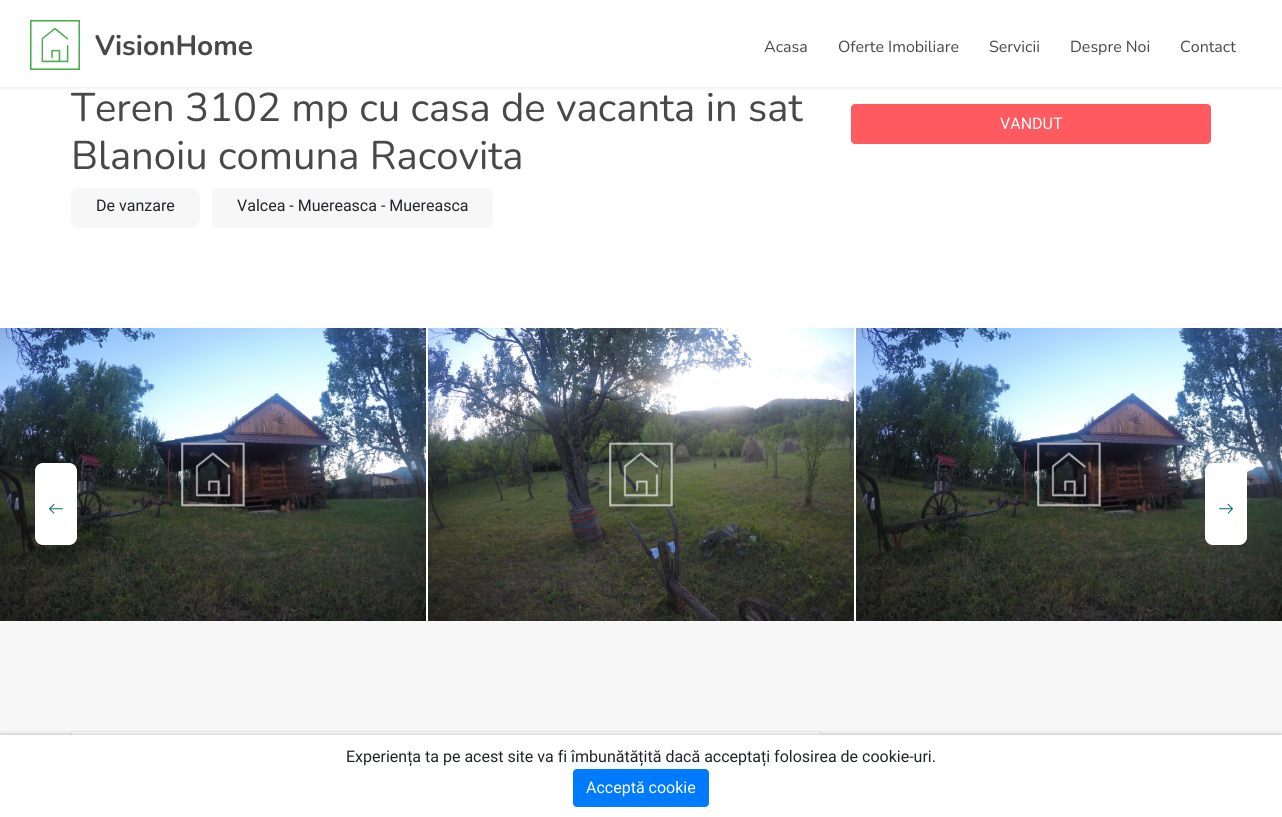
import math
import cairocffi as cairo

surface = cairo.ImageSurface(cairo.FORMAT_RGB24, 1282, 817)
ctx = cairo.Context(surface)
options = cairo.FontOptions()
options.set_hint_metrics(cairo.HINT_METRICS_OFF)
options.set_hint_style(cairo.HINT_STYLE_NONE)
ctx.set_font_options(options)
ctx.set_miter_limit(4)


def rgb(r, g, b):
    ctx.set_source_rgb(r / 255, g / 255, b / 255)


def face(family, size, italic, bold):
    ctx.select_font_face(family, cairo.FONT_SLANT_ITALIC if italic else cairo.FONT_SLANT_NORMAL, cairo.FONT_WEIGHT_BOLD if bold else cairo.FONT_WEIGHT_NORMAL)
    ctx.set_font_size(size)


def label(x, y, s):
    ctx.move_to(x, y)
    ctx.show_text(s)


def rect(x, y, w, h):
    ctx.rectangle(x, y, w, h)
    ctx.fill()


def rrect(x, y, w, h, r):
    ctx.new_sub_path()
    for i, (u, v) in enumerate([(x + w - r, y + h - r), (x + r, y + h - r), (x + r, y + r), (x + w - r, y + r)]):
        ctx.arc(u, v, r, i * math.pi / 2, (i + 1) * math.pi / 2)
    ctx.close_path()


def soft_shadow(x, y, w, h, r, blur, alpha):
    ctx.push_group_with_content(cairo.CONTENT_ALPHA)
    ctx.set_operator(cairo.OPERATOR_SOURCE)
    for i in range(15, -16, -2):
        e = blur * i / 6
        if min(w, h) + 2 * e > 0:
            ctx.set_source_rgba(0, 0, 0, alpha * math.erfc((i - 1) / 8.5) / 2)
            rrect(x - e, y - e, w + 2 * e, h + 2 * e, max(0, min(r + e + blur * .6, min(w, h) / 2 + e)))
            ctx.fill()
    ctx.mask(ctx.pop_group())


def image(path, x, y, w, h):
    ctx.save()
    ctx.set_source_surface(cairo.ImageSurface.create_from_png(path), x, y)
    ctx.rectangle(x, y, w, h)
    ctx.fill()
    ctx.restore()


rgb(255, 255, 255)
ctx.paint()
ctx.save()
ctx.rectangle(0, 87, 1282, 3)
ctx.clip()
rgb(0, 0, 0)
soft_shadow(0, 1, 1282, 87, 0, 2, 0.09)
ctx.restore()
image('image0.png', 30, 20, 50, 50)
face('Nunito', 28, 0, 1)
rgb(72, 72, 72)
label(95, 55, 'VisionHome')
face('Nunito', 16, 0, 0)
label(764, 52, 'Acasa')
label(838, 52, 'Oferte Imobiliare')
label(989, 52, 'Servicii')
label(1070, 52, 'Despre Noi')
label(1180, 52, 'Contact')
face('Nunito', 40, 0, 0)
label(71, 121, 'Teren 3102 mp cu casa de vacanta in sat')
label(71, 169, 'Blanoiu comuna Racovita')
rgb(247, 247, 247)
rrect(71, 188, 129, 40, 8)
ctx.fill()
face('Roboto', 16, 0, 0)
rgb(33, 37, 41)
label(96, 211, 'De vanzare')
rgb(247, 247, 247)
rrect(212, 188, 281, 40, 8)
ctx.fill()
rgb(33, 37, 41)
label(237, 211, 'Valcea - Muereasca - Muereasca')
rgb(255, 90, 95)
rrect(852, 105, 358, 38, 3)
ctx.fill_preserve()
ctx.stroke()
rgb(255, 255, 255)
label(1000, 129, 'VANDUT')
image('image1.png', 0, 328, 426, 293)
image('image2.png', 428, 328, 426, 293)
image('image3.png', 856, 328, 426, 293)
rrect(35.5, 463.5, 41, 81, 7.5)
ctx.fill_preserve()
ctx.set_line_width(1)
ctx.stroke()
image('image4.png', 49, 503, 14, 11)
rrect(1205.5, 463.5, 41, 81, 7.5)
ctx.fill_preserve()
ctx.stroke()
image('image5.png', 1219, 503, 14, 11)
rgb(247, 247, 247)
rect(0, 621, 1282, 114)
rgb(255, 255, 255)
rect(72, 732, 748, 3)
ctx.rectangle(71.5, 731.5, 749, 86)
rgb(235, 235, 235)
ctx.stroke()
rgb(0, 0, 0)
soft_shadow(0, 735, 1282, 82, 0, 2.5, 0.3)
rgb(255, 255, 255)
rect(0, 735, 1282, 82)
rgb(33, 37, 41)
label(346, 762, 'Experiența ta pe acest site va fi îmbunătățită dacă acceptați folosirea de cookie-uri.')
rgb(0, 123, 255)
rrect(573.5, 769.5, 135, 37, 3.5)
ctx.fill_preserve()
ctx.stroke()
rgb(255, 255, 255)
label(586, 793, 'Acceptă cookie')
surface.write_to_png('render.png')
